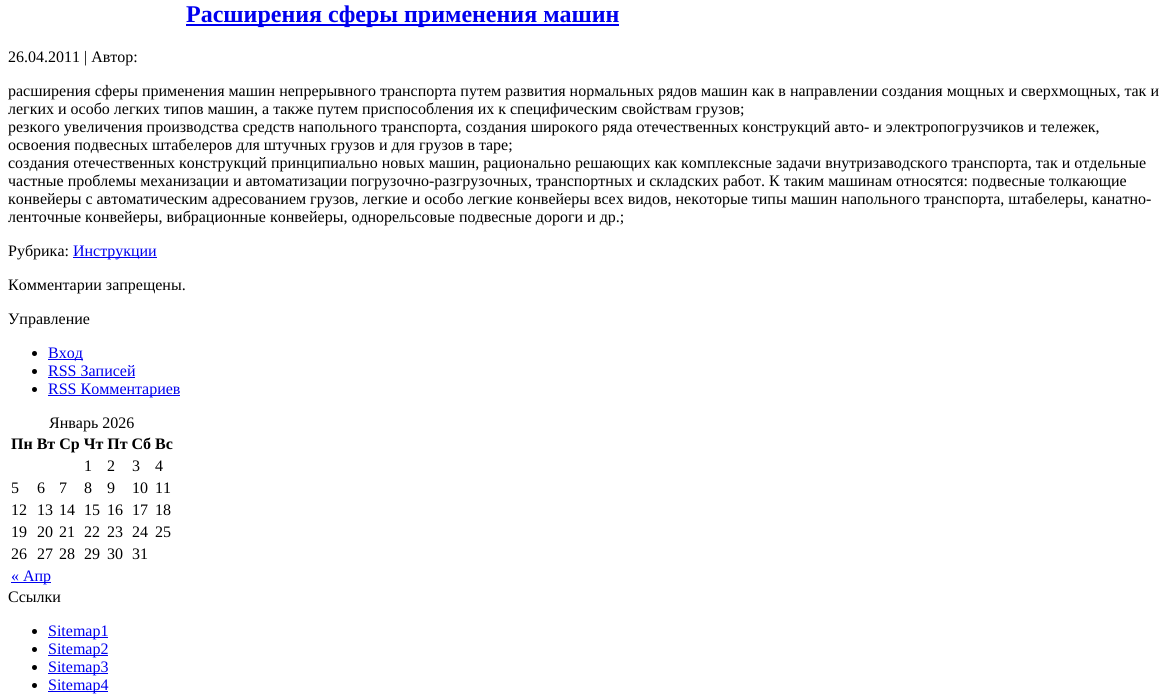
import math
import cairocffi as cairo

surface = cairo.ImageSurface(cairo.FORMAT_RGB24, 1173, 699)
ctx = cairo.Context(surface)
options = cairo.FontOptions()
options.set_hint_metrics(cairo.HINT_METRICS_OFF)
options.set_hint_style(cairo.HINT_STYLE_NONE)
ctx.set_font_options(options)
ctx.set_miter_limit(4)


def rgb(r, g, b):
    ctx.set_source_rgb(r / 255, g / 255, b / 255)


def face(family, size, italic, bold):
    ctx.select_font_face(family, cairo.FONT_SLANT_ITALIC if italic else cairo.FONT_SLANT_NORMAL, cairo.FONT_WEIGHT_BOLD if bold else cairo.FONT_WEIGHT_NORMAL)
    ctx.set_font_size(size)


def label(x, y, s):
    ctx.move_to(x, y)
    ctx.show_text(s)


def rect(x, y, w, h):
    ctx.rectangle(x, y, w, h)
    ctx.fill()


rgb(255, 255, 255)
ctx.paint()
rgb(0, 0, 238)
rect(186, 24, 433, 2)
face('Liberation Serif', 24, 0, 1)
label(186, 22, 'Расширения сферы применения машин')
face('Liberation Serif', 16, 0, 0)
rgb(0, 0, 0)
label(8, 62, '26.04.2011 | Автор:')
label(8, 96, 'расширения сферы применения машин непрерывного транспорта путем развития нормальных рядов машин как в направлении создания мощных и сверхмощных, так и')
label(8, 114, 'легких и особо легких типов машин, а также путем приспособления их к специфическим свойствам грузов;')
label(8, 132, 'резкого увеличения производства средств напольного транспорта, создания широкого ряда отечественных конструкций авто- и электропогрузчиков и тележек,')
label(8, 150, 'освоения подвесных штабелеров для штучных грузов и для грузов в таре;')
label(8, 168, 'создания отечественных конструкций принципиально новых машин, рационально решающих как комплексные задачи внутризаводского транспорта, так и отдельные')
label(8, 186, 'частные проблемы механизации и автоматизации погрузочно-разгрузочных, транспортных и складских работ. К таким машинам относятся: подвесные толкающие')
label(8, 204, 'конвейеры с автоматическим адресованием грузов, легкие и особо легкие конвейеры всех видов, некоторые типы машин напольного транспорта, штабелеры, канатно-')
label(8, 222, 'ленточные конвейеры, вибрационные конвейеры, однорельсовые подвесные дороги и др.;')
label(8, 256, 'Рубрика:')
rgb(0, 0, 238)
rect(73, 257, 84, 1)
label(73, 256, 'Инструкции')
rgb(0, 0, 0)
label(8, 290, 'Комментарии запрещены.')
label(8, 324, 'Управление')
ctx.new_path()
ctx.arc(34.5, 353.5, 2.5, 0, 2 * math.pi)
ctx.fill()
rgb(0, 0, 238)
rect(48, 359, 35, 1)
label(48, 358, 'Вход')
rgb(0, 0, 0)
ctx.new_path()
ctx.arc(34.5, 371.5, 2.5, 0, 2 * math.pi)
ctx.fill()
rgb(0, 0, 238)
label(48, 376, 'RSS Записей')
rect(48, 377, 87, 1)
rgb(0, 0, 0)
ctx.new_path()
ctx.arc(34.5, 389.5, 2.5, 0, 2 * math.pi)
ctx.fill()
rgb(0, 0, 238)
rect(48, 395, 132, 1)
label(48, 394, 'RSS Комментариев')
rgb(0, 0, 0)
label(49, 428, 'Январь 2026')
face('Liberation Serif', 16, 0, 1)
label(11, 449, 'Пн Вт Ср Чт Пт Сб Вс')
face('Liberation Serif', 16, 0, 0)
label(84, 471, '1')
label(107, 471, '2')
label(132, 471, '3')
label(155, 471, '4')
label(11, 493, '5')
label(37, 493, '6')
label(59, 493, '7')
label(84, 493, '8')
label(107, 493, '9')
label(132, 493, '10')
label(155, 493, '11')
label(11, 515, '12')
label(37, 515, '13')
label(59, 515, '14')
label(84, 515, '15')
label(107, 515, '16')
label(132, 515, '17')
label(155, 515, '18')
label(11, 537, '19')
label(37, 537, '20')
label(59, 537, '21')
label(84, 537, '22')
label(107, 537, '23')
label(132, 537, '24')
label(155, 537, '25')
label(11, 559, '26')
label(37, 559, '27')
label(59, 559, '28')
label(84, 559, '29')
label(107, 559, '30')
label(132, 559, '31')
rgb(0, 0, 238)
rect(11, 582, 40, 1)
label(11, 581, '« Апр')
rgb(0, 0, 0)
label(8, 602, 'Ссылки')
ctx.new_path()
ctx.arc(34.5, 631.5, 2.5, 0, 2 * math.pi)
ctx.fill()
rgb(0, 0, 238)
rect(48, 637, 60, 1)
label(48, 636, 'Sitemap1')
rgb(0, 0, 0)
ctx.new_path()
ctx.arc(34.5, 649.5, 2.5, 0, 2 * math.pi)
ctx.fill()
rgb(0, 0, 238)
rect(48, 655, 60, 1)
label(48, 654, 'Sitemap2')
rgb(0, 0, 0)
ctx.new_path()
ctx.arc(34.5, 667.5, 2.5, 0, 2 * math.pi)
ctx.fill()
rgb(0, 0, 238)
rect(48, 673, 60, 1)
label(48, 672, 'Sitemap3')
rgb(0, 0, 0)
ctx.new_path()
ctx.arc(34.5, 685.5, 2.5, 0, 2 * math.pi)
ctx.fill()
rgb(0, 0, 238)
rect(48, 691, 60, 1)
label(48, 690, 'Sitemap4')
surface.write_to_png('render.png')
